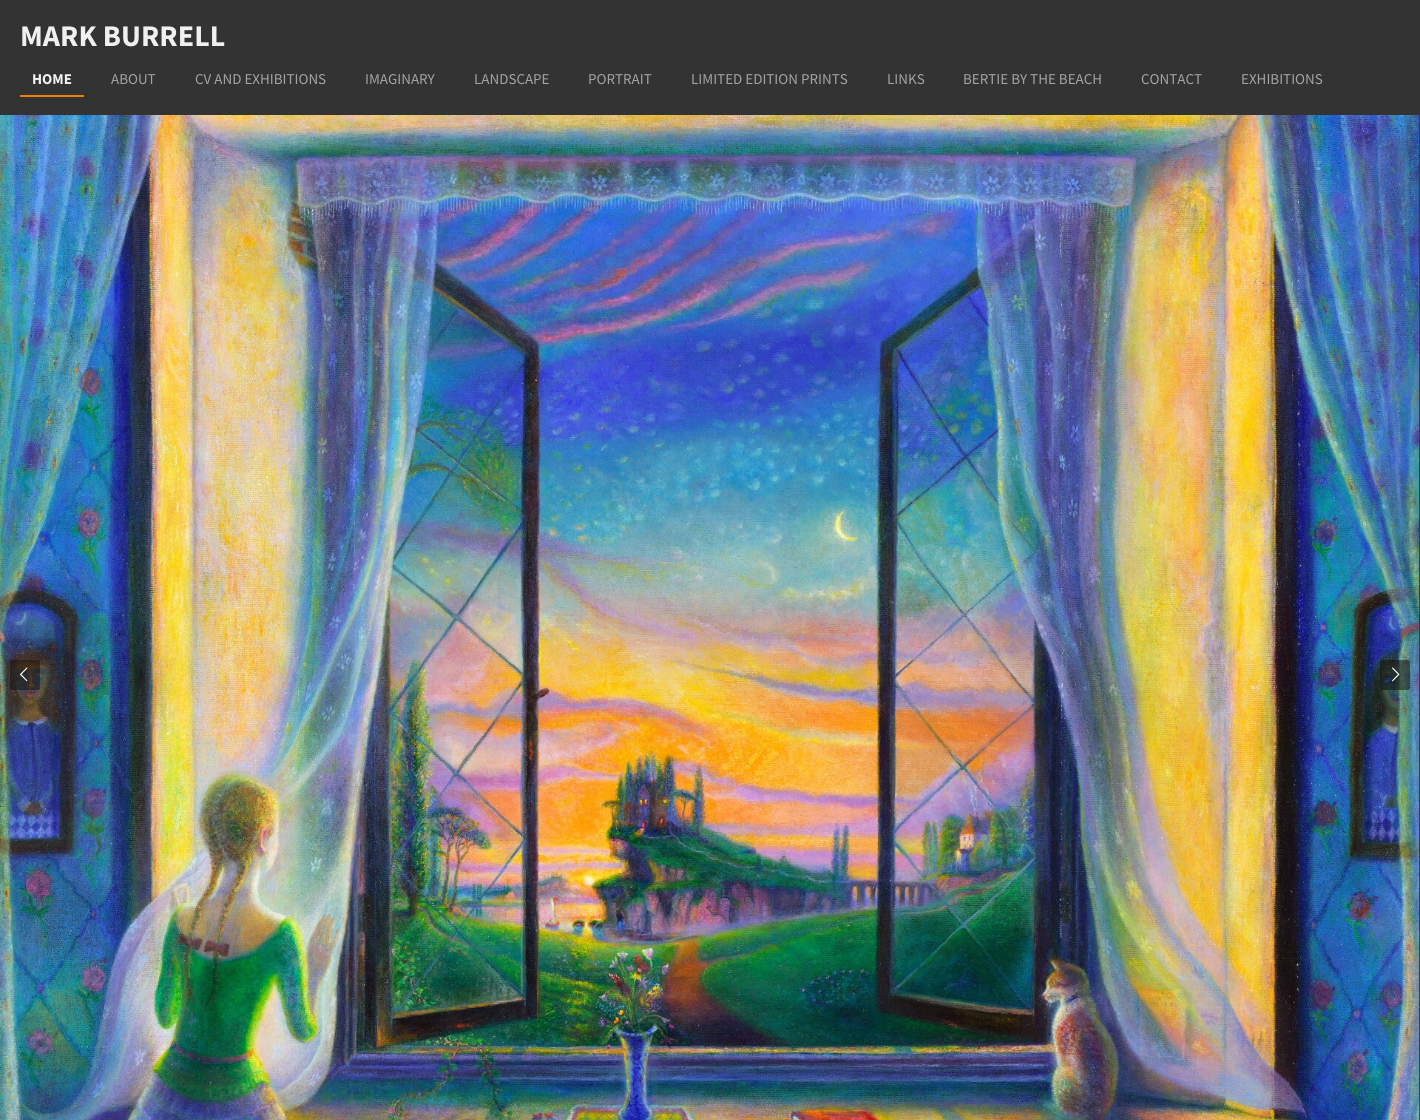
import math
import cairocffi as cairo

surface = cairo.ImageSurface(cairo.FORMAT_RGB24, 1420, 1120)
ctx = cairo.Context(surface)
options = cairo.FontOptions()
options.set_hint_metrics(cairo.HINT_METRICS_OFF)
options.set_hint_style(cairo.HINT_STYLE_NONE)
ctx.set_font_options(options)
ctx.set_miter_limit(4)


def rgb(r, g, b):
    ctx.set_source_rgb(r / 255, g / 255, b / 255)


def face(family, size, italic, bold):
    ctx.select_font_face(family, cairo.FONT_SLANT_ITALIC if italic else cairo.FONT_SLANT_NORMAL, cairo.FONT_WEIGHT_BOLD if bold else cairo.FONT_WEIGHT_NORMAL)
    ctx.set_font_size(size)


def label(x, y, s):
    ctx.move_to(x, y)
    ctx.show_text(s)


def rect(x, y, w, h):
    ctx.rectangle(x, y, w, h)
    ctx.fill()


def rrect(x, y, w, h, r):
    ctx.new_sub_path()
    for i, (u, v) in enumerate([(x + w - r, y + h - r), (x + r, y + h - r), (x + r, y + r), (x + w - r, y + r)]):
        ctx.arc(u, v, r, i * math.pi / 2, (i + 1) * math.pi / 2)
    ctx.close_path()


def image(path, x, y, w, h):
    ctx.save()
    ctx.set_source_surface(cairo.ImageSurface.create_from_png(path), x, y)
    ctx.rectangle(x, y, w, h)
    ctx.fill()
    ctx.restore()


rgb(51, 51, 51)
ctx.paint()
face('Source Sans Pro', 30, 0, 1)
rgb(240, 240, 240)
label(20, 46, 'MARK BURRELL')
rgb(235, 129, 19)
rect(20, 95, 64, 2)
face('Source Sans Pro', 15, 0, 1)
rgb(240, 240, 240)
label(32, 84, 'HOME')
face('Source Sans Pro', 15, 0, 0)
rgb(163, 163, 163)
label(111, 84, 'ABOUT')
label(195, 84, 'CV AND EXHIBITIONS')
label(365, 84, 'IMAGINARY')
label(474, 84, 'LANDSCAPE')
label(588, 84, 'PORTRAIT')
label(691, 84, 'LIMITED EDITION PRINTS')
label(887, 84, 'LINKS')
label(963, 84, 'BERTIE BY THE BEACH')
label(1141, 84, 'CONTACT')
label(1241, 84, 'EXHIBITIONS')
image('image0.png', 0, 115, 1420, 1005)
ctx.set_source_rgba(0.059, 0.059, 0.059, 0.5)
rrect(10, 660, 30, 30, 2)
ctx.fill()
image('image1.png', 20, 667, 8, 15)
rrect(1380, 660, 30, 30, 2)
ctx.fill()
image('image2.png', 1392, 667, 8, 15)
surface.write_to_png('render.png')
